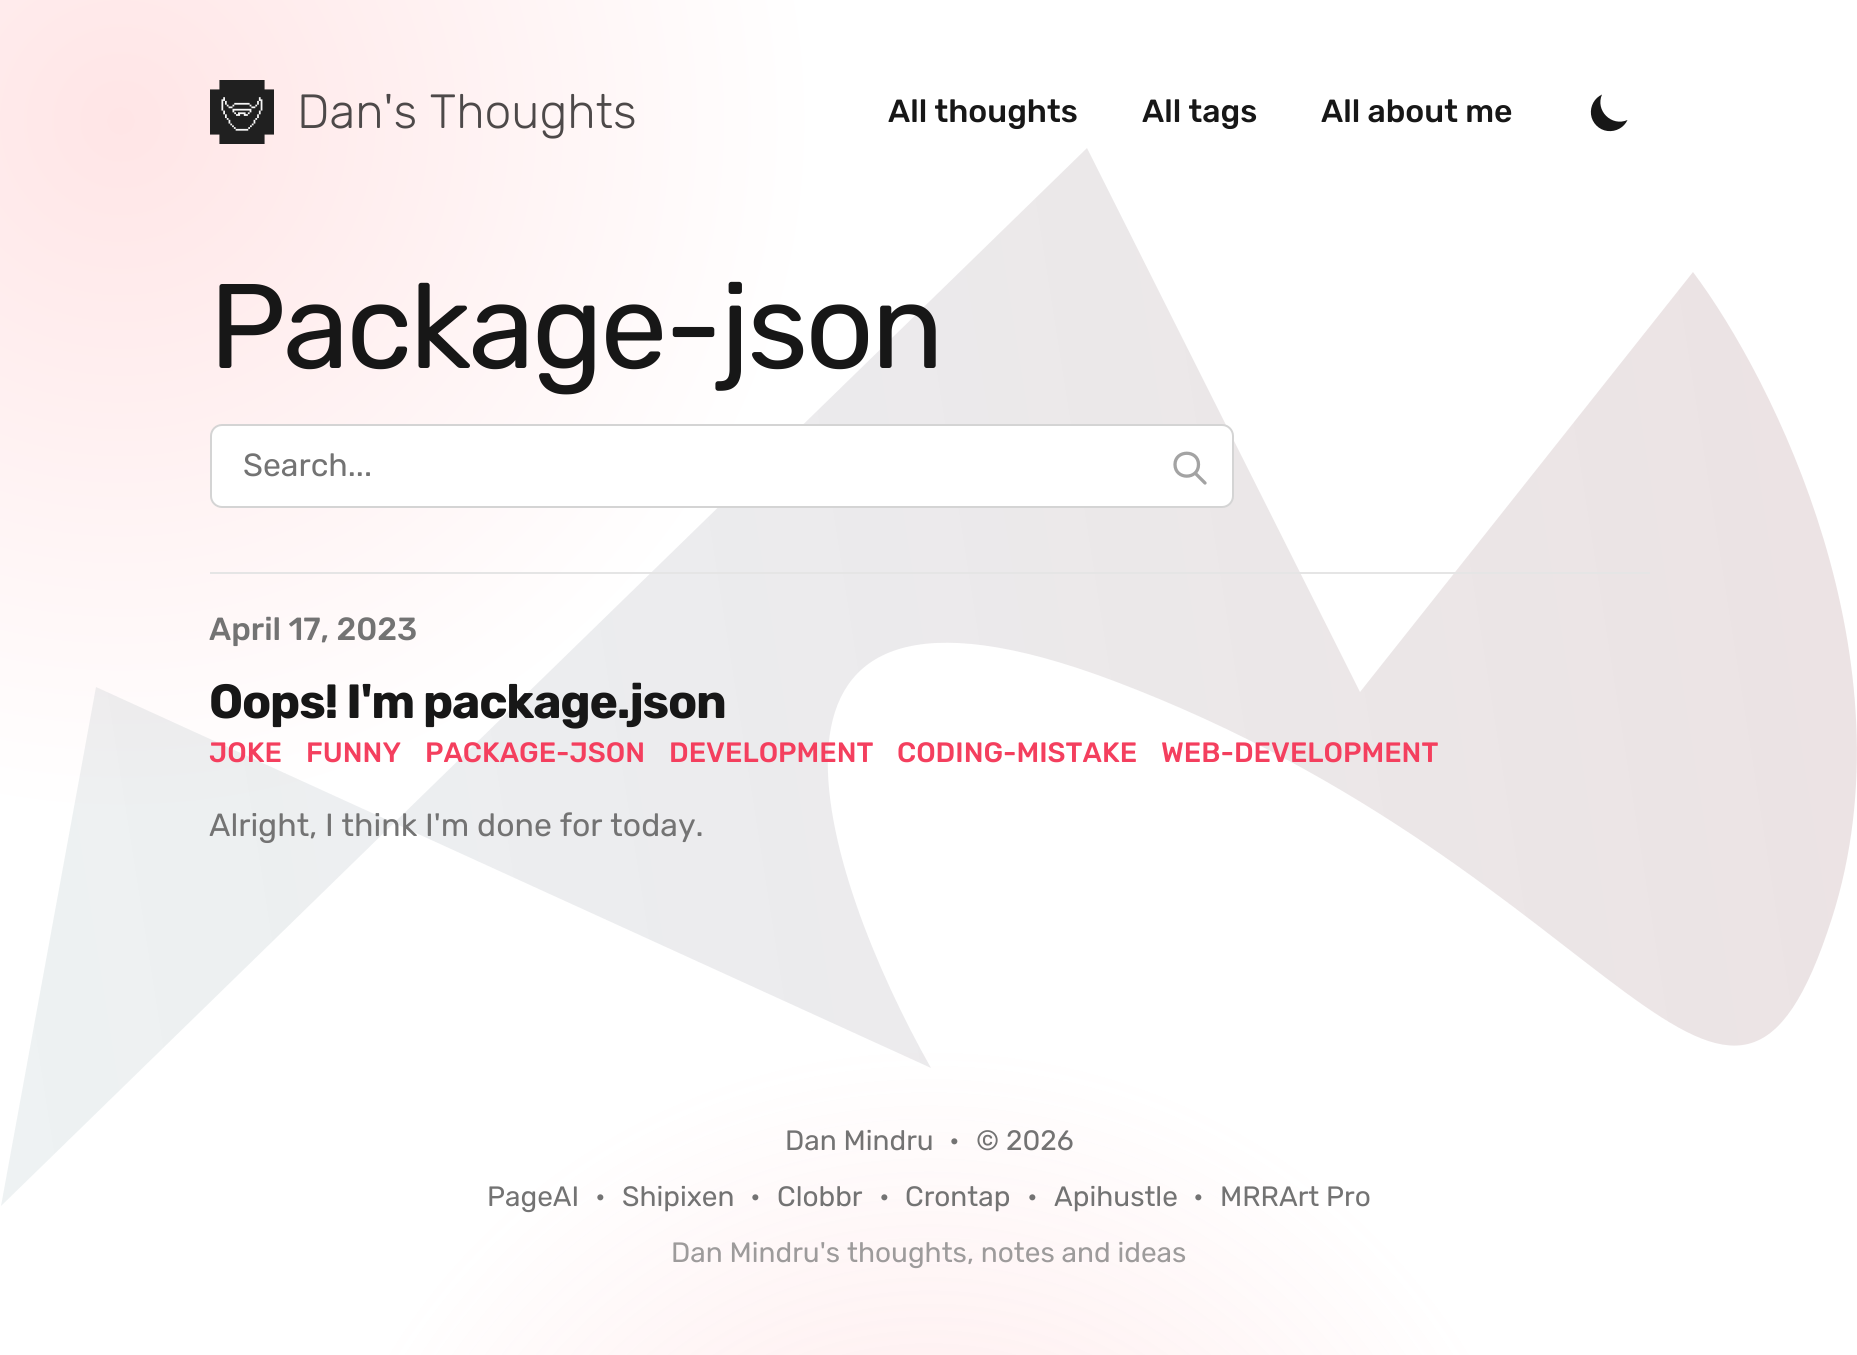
import math
import cairocffi as cairo

surface = cairo.ImageSurface(cairo.FORMAT_RGB24, 1857, 1355)
ctx = cairo.Context(surface)
options = cairo.FontOptions()
options.set_hint_metrics(cairo.HINT_METRICS_OFF)
options.set_hint_style(cairo.HINT_STYLE_NONE)
ctx.set_font_options(options)
ctx.set_miter_limit(4)


def rgb(r, g, b):
    ctx.set_source_rgb(r / 255, g / 255, b / 255)


def face(family, size, italic, bold):
    ctx.select_font_face(family, cairo.FONT_SLANT_ITALIC if italic else cairo.FONT_SLANT_NORMAL, cairo.FONT_WEIGHT_BOLD if bold else cairo.FONT_WEIGHT_NORMAL)
    ctx.set_font_size(size)


def label(x, y, s):
    ctx.move_to(x, y)
    ctx.show_text(s)


def tracked(x, y, s, letter, word):
    ctx.move_to(x, y)
    for ch in s:
        ctx.show_text(ch)
        ctx.rel_move_to(letter + word * (ch == ' '), 0)


def rect(x, y, w, h):
    ctx.rectangle(x, y, w, h)
    ctx.fill()


def rrect(x, y, w, h, r):
    ctx.new_sub_path()
    for i, (u, v) in enumerate([(x + w - r, y + h - r), (x + r, y + h - r), (x + r, y + r), (x + w - r, y + r)]):
        ctx.arc(u, v, r, i * math.pi / 2, (i + 1) * math.pi / 2)
    ctx.close_path()


def image(path, x, y, w, h):
    ctx.save()
    ctx.set_source_surface(cairo.ImageSurface.create_from_png(path), x, y)
    ctx.rectangle(x, y, w, h)
    ctx.fill()
    ctx.restore()


rgb(255, 255, 255)
ctx.paint()
gradient = cairo.RadialGradient(121, 121, 0, 121, 121, 697)
gradient.add_color_stop_rgba(0, 1, 0.898, 0.902, 1)
gradient.add_color_stop_rgba(1, 1, 1, 1, 1)
ctx.set_source(gradient)
ctx.arc(121, 121, 697, 0, 2 * math.pi)
ctx.fill()
image('image0.png', 210, 80, 64, 64)
face('Rubik Light', 48, 0, 0)
rgb(77, 73, 73)
label(297, 128, 'Dan\'s Thoughts')
face('Rubik Medium', 32, 0, 0)
rgb(23, 23, 23)
label(888, 122, 'All thoughts')
label(1142, 122, 'All tags')
label(1321, 122, 'All about me')
ctx.new_path()
ctx.move_to(1627.5, 120)
ctx.curve_to(1611.5, 127, 1595, 110.5, 1602, 94.5)
ctx.curve_to(1594.5, 98, 1590, 106, 1591, 114.5)
ctx.curve_to(1592, 123, 1599, 130, 1607.5, 131)
ctx.curve_to(1616, 132, 1624, 127.5, 1627.5, 120)
ctx.close_path()
ctx.fill()
gradient = cairo.LinearGradient(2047, 874, -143, 1219)
gradient.add_color_stop_rgba(0, 0.467, 0.157, 0.173, 0.14)
gradient.add_color_stop_rgba(1, 0.075, 0.314, 0.392, 0.07)
ctx.set_source(gradient)
ctx.new_path()
ctx.move_to(394, 823)
ctx.line_to(96, 687)
ctx.line_to(1, 1206)
ctx.line_to(394, 823)
ctx.line_to(931, 1068)
ctx.curve_to(822, 875, 706, 527, 1114, 681)
ctx.curve_to(1624, 874, 1729, 1240, 1832, 918)
ctx.curve_to(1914, 661, 1774, 380, 1693, 272)
ctx.line_to(1360, 692)
ctx.line_to(1087, 148)
ctx.close_path()
ctx.fill()
face('Rubik', 120, 0, 0)
rgb(23, 23, 23)
tracked(209, 368, 'Package-json', -3, 0)
rgb(255, 255, 255)
rrect(211, 425, 1022, 82, 11)
ctx.fill_preserve()
rgb(212, 212, 212)
ctx.stroke()
face('Rubik', 32, 0, 0)
rgb(115, 115, 115)
label(243, 476, 'Search...')
ctx.new_path()
ctx.move_to(1205, 483)
ctx.line_to(1195, 473)
ctx.move_to(1198.5, 464.5)
ctx.curve_to(1198.5, 480, 1175, 480, 1175, 464.5)
ctx.curve_to(1175, 449.5, 1198.5, 449.5, 1198.5, 464.5)
ctx.close_path()
rgb(163, 163, 163)
ctx.set_line_width(3.3)
ctx.set_line_cap(cairo.LINE_CAP_ROUND)
ctx.set_line_join(cairo.LINE_JOIN_ROUND)
ctx.stroke()
rgb(229, 229, 229)
rect(210, 572, 1440, 2)
face('Rubik Medium', 32, 0, 0)
rgb(115, 115, 115)
label(209, 640, 'April 17, 2023')
face('Rubik', 48, 0, 1)
rgb(23, 23, 23)
tracked(209, 718, 'Oops! I\'m package.json', -1.2, 0)
face('Rubik Medium', 28, 0, 0)
rgb(244, 63, 94)
label(209, 762, 'JOKE')
label(306, 762, 'FUNNY')
label(425, 762, 'PACKAGE-JSON')
label(669, 762, 'DEVELOPMENT')
label(897, 762, 'CODING-MISTAKE')
label(1161, 762, 'WEB-DEVELOPMENT')
face('Rubik', 32, 0, 0)
rgb(115, 115, 115)
label(209, 836, 'Alright, I think I\'m done for today.')
gradient = cairo.RadialGradient(929, 1686, 0, 929, 1686, 640)
gradient.add_color_stop_rgba(0, 0.984, 0.451, 0.475, 0.19)
gradient.add_color_stop_rgba(1, 0.984, 0.451, 0.475, 0)
ctx.set_source(gradient)
ctx.new_path()
ctx.arc(929, 1686, 640, 0, 2 * math.pi)
ctx.fill()
face('Rubik', 28, 0, 0)
rgb(115, 115, 115)
label(785, 1150, 'Dan Mindru')
label(949, 1150, '•')
label(976, 1150, '© 2026')
label(487, 1206, 'PageAI')
label(595, 1206, '•')
label(622, 1206, 'Shipixen')
label(750, 1206, '•')
label(777, 1206, 'Clobbr')
label(879, 1206, '•')
label(905, 1206, 'Crontap')
label(1027, 1206, '•')
label(1054, 1206, 'Apihustle')
label(1193, 1206, '•')
label(1220, 1206, 'MRRArt Pro')
rgb(157, 155, 155)
label(671, 1262, 'Dan Mindru\'s thoughts, notes and ideas')
surface.write_to_png('render.png')
